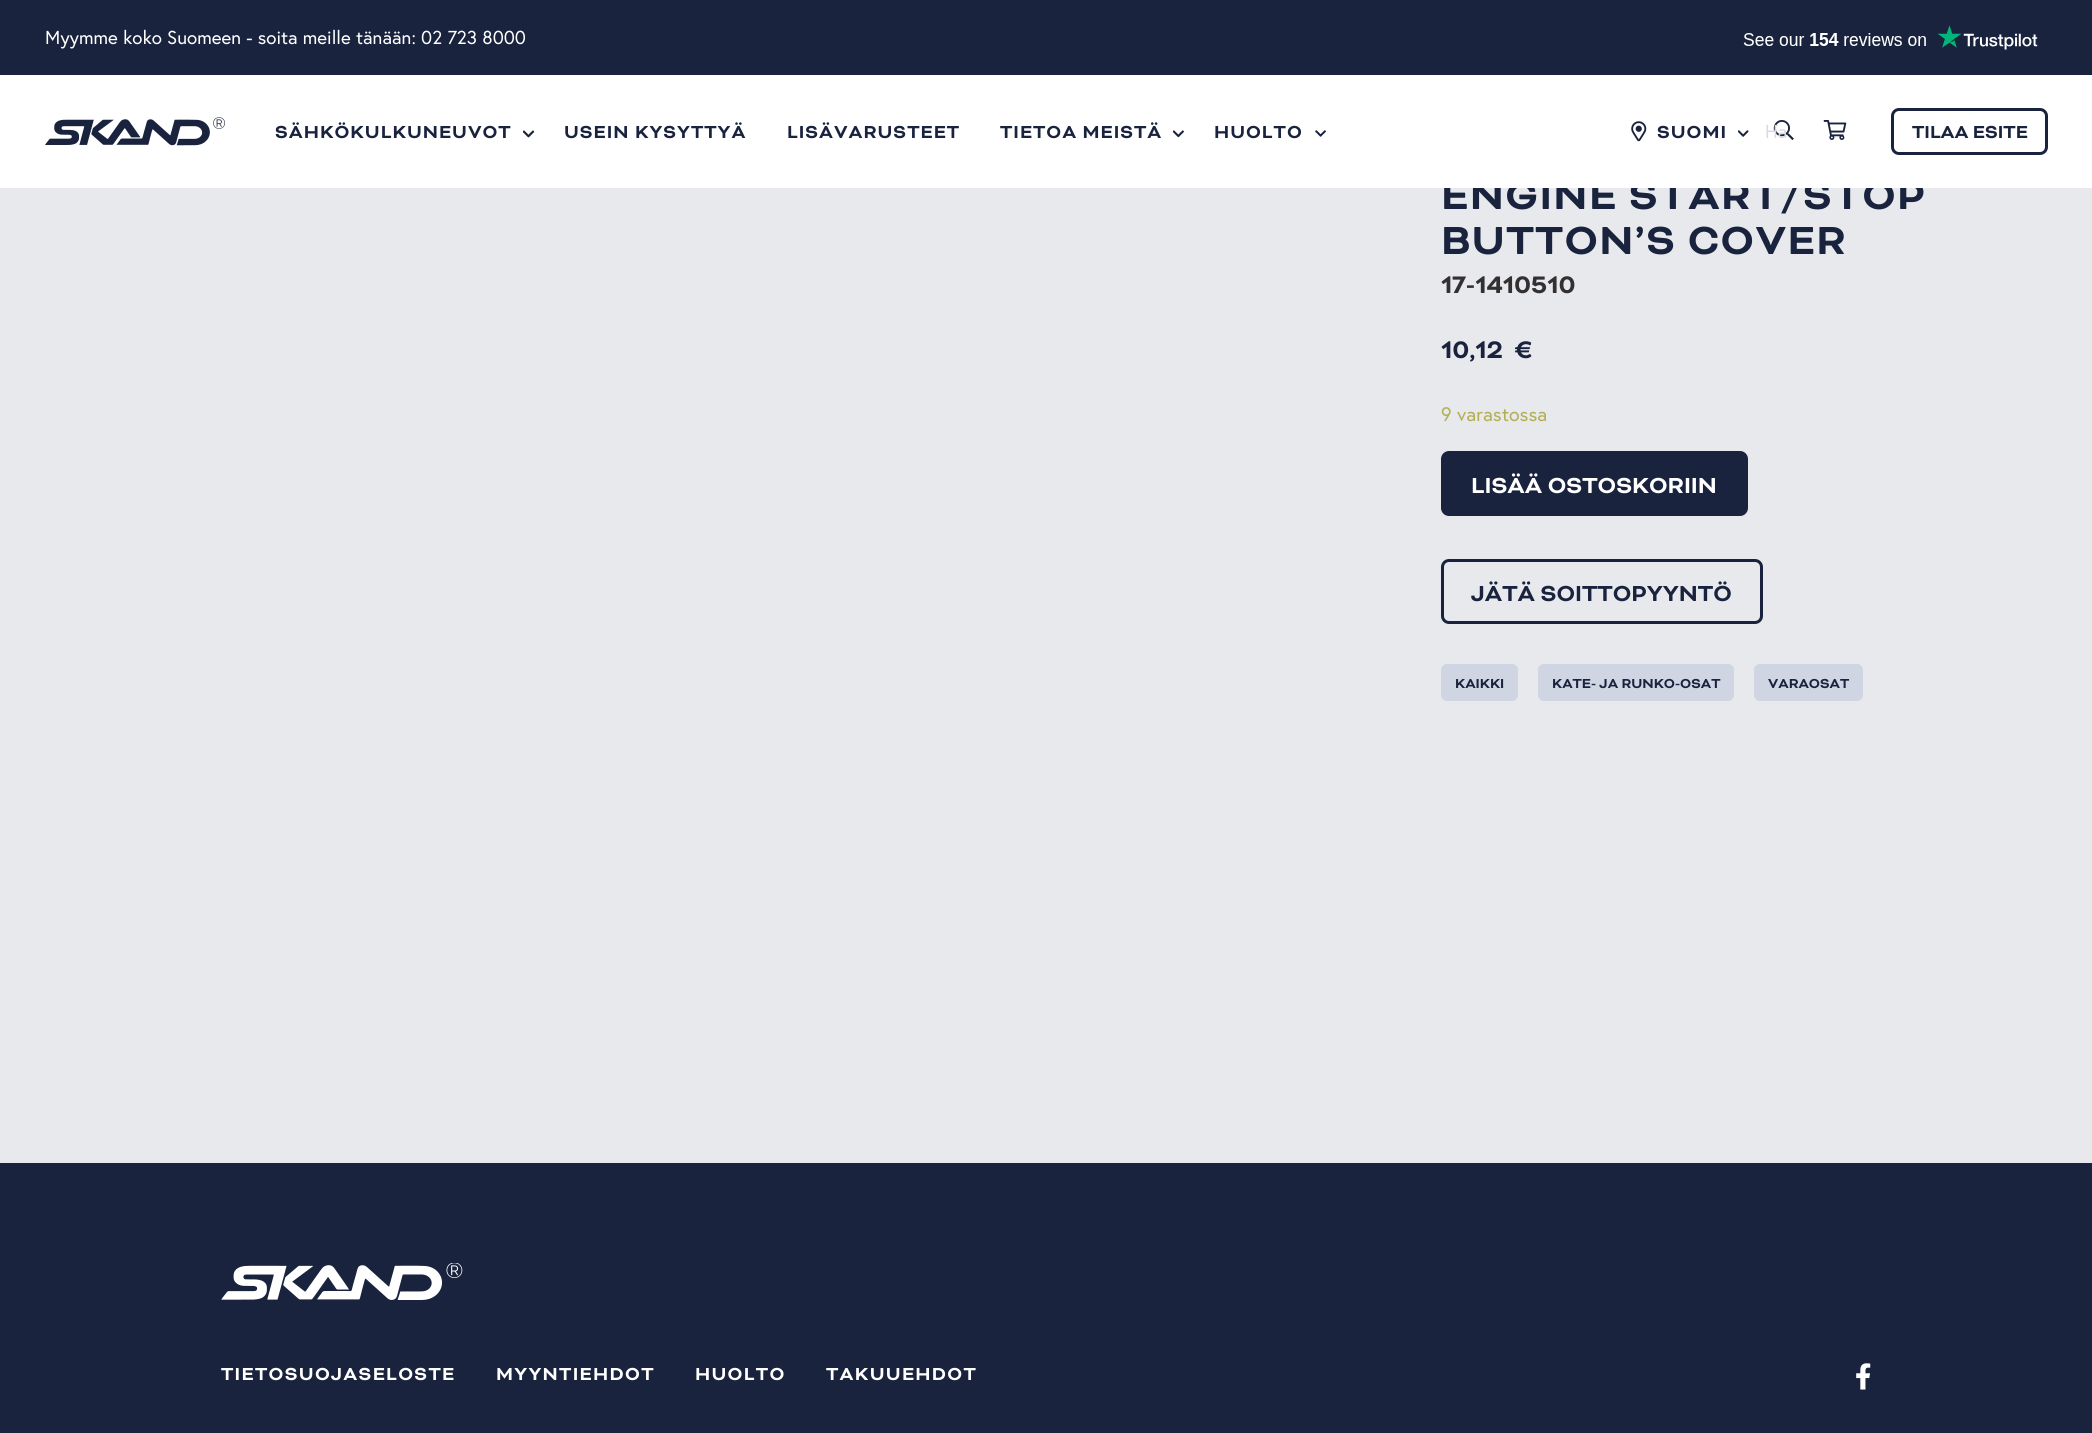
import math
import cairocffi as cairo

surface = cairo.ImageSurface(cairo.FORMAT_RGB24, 2092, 1433)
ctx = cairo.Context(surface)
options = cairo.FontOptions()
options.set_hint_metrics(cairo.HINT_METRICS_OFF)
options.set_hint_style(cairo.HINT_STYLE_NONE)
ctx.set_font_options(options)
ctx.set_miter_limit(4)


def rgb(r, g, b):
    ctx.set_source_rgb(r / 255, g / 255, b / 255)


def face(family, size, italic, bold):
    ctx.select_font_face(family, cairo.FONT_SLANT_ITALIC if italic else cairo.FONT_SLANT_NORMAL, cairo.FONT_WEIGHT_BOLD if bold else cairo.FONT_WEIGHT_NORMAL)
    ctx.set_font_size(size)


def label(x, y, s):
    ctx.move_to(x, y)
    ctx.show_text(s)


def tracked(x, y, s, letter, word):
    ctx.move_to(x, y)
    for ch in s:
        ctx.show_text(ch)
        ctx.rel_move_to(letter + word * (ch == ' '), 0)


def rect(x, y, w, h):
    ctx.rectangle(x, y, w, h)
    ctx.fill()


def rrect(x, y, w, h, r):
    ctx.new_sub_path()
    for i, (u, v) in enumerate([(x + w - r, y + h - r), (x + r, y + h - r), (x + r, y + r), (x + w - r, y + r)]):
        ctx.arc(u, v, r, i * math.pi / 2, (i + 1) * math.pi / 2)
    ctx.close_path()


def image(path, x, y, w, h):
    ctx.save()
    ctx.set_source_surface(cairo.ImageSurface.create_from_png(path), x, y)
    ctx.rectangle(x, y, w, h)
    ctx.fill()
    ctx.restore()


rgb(25, 35, 62)
ctx.paint()
face('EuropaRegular', 18.75, 0, 0)
rgb(255, 255, 255)
label(45, 44, 'Myymme koko Suomeen - soita meille tänään: 02 723 8000')
image('image0.png', 1743, 25, 295, 25)
rgb(232, 233, 236)
rect(0, 188, 2092, 975)
face('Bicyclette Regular', 45, 0, 1)
rgb(25, 35, 62)
tracked(1441, 209, 'ENGINE START/STOP', 1.4, 0)
rgb(255, 255, 255)
rect(0, 75, 2092, 113)
image('image1.png', 45, 117, 180, 29)
face('Bicyclette Regular', 20, 0, 1)
rgb(25, 35, 62)
tracked(275, 138, 'SÄHKÖKULKUNEUVOT', 1, 0)
image('image2.png', 523, 130, 11, 8)
tracked(564, 138, 'USEIN KYSYTTYÄ', 1, 0)
tracked(787, 138, 'LISÄVARUSTEET', 1, 0)
tracked(1000, 138, 'TIETOA MEISTÄ', 1, 0)
image('image3.png', 1173, 130, 11, 8)
tracked(1214, 138, 'HUOLTO', 1, 0)
image('image4.png', 1315, 130, 11, 7)
image('image5.png', 1631, 121, 16, 21)
tracked(1657, 138, 'SUOMI', 1, 0)
image('image6.png', 1738, 130, 11, 7)
image('image7.png', 1773, 120, 21, 20)
ctx.save()
ctx.rectangle(1765, 120, 21, 24)
ctx.clip()
face('EuropaRegular', 18.75, 0, 0)
rgb(217, 218, 223)
label(1765, 138, 'Ha')
ctx.restore()
image('image8.png', 1823, 120, 24, 20)
rrect(1892.5, 109.5, 154, 44, 6.5)
ctx.set_line_width(3)
ctx.stroke()
label(1912, 138, 'TILAA ESITE')
face('Bicyclette Regular', 45, 0, 1)
tracked(1441, 254, 'BUTTON’S COVER', 1.4, 0)
face('Bicyclette Regular', 27.5, 0, 1)
rgb(51, 48, 49)
label(1441, 293, '17-1410510')
rgb(25, 35, 62)
label(1441, 358, '10,12')
label(1514, 358, '€')
face('EuropaRegular', 19.5, 0, 0)
rgb(179, 175, 84)
label(1441, 421, '9 varastossa')
rgb(25, 35, 62)
rrect(1441, 451, 307, 65, 8)
ctx.fill()
face('Bicyclette Regular', 25, 0, 1)
rgb(255, 255, 255)
label(1471, 493, 'LISÄÄ OSTOSKORIIN')
rrect(1442.5, 560.5, 319, 62, 6.5)
rgb(25, 35, 62)
ctx.stroke()
label(1471, 601, 'JÄTÄ SOITTOPYYNTÖ')
rgb(208, 213, 227)
rrect(1441, 664, 77, 37, 6)
ctx.fill()
face('Bicyclette Regular', 15, 0, 1)
rgb(25, 35, 62)
label(1455, 688, 'KAIKKI')
rgb(208, 213, 227)
rrect(1538, 664, 196, 37, 6)
ctx.fill()
rgb(25, 35, 62)
label(1552, 688, 'KATE- JA RUNKO-OSAT')
rgb(208, 213, 227)
rrect(1754, 664, 109, 37, 6)
ctx.fill()
rgb(25, 35, 62)
label(1768, 688, 'VARAOSAT')
image('image9.png', 221, 1263, 242, 37)
face('Bicyclette Regular', 20, 0, 1)
rgb(255, 255, 255)
tracked(221, 1380, 'TIETOSUOJASELOSTE', 1.3, 0)
tracked(496, 1380, 'MYYNTIEHDOT', 1.3, 0)
tracked(695, 1380, 'HUOLTO', 1.3, 0)
tracked(826, 1380, 'TAKUUEHDOT', 1.3, 0)
image('image10.png', 1856, 1363, 15, 27)
surface.write_to_png('render.png')
